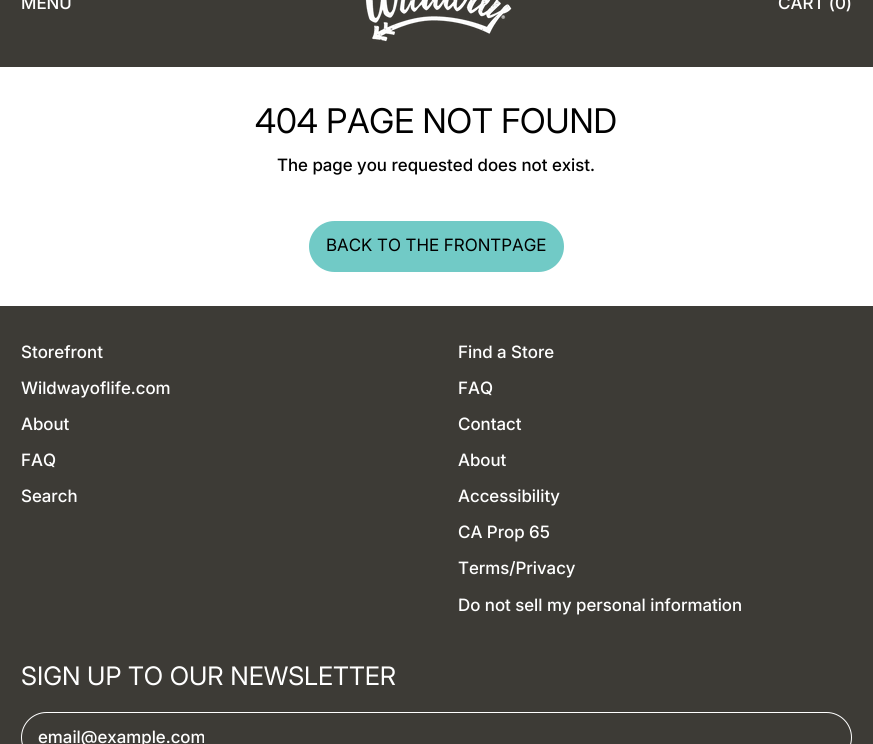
import math
import cairocffi as cairo

surface = cairo.ImageSurface(cairo.FORMAT_RGB24, 873, 744)
ctx = cairo.Context(surface)
options = cairo.FontOptions()
options.set_hint_metrics(cairo.HINT_METRICS_OFF)
options.set_hint_style(cairo.HINT_STYLE_NONE)
ctx.set_font_options(options)
ctx.set_miter_limit(4)


def rgb(r, g, b):
    ctx.set_source_rgb(r / 255, g / 255, b / 255)


def face(family, size, italic, bold):
    ctx.select_font_face(family, cairo.FONT_SLANT_ITALIC if italic else cairo.FONT_SLANT_NORMAL, cairo.FONT_WEIGHT_BOLD if bold else cairo.FONT_WEIGHT_NORMAL)
    ctx.set_font_size(size)


def label(x, y, s):
    ctx.move_to(x, y)
    ctx.show_text(s)


def rect(x, y, w, h):
    ctx.rectangle(x, y, w, h)
    ctx.fill()


def rrect(x, y, w, h, r):
    ctx.new_sub_path()
    for i, (u, v) in enumerate([(x + w - r, y + h - r), (x + r, y + h - r), (x + r, y + r), (x + w - r, y + r)]):
        ctx.arc(u, v, r, i * math.pi / 2, (i + 1) * math.pi / 2)
    ctx.close_path()


def image(path, x, y, w, h):
    ctx.save()
    ctx.set_source_surface(cairo.ImageSurface.create_from_png(path), x, y)
    ctx.rectangle(x, y, w, h)
    ctx.fill()
    ctx.restore()


rgb(255, 255, 255)
ctx.paint()
rgb(61, 59, 54)
rect(0, 0, 873, 67)
face('Inter Medium', 17, 0, 0)
rgb(255, 255, 255)
label(21, 9, 'MENU')
image('image0.png', 365, 0, 147, 42)
label(778, 9, 'CART (0)')
face('Inter', 34, 0, 0)
rgb(0, 0, 0)
label(255, 133, '404 PAGE NOT FOUND')
face('Inter Medium', 17, 0, 0)
label(277, 171, 'The page you requested does not exist.')
rgb(113, 202, 198)
rrect(309, 221, 255, 51, 25.5)
ctx.fill()
face('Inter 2', 17, 0, 0)
rgb(0, 0, 0)
label(326, 251, 'BACK TO THE FRONTPAGE')
rgb(61, 59, 54)
rect(0, 306, 873, 438)
face('Inter Medium', 17, 0, 0)
rgb(255, 255, 255)
label(21, 358, 'Storefront')
label(21, 394, 'Wildwayoflife.com')
label(21, 430, 'About')
label(21, 466, 'FAQ')
label(21, 502, 'Search')
label(458, 358, 'Find a Store')
label(458, 394, 'FAQ')
label(458, 430, 'Contact')
label(458, 466, 'About')
label(458, 502, 'Accessibility')
label(458, 538, 'CA Prop 65')
label(458, 574, 'Terms/Privacy')
label(458, 611, 'Do not sell my personal information')
face('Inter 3', 25.5, 0, 0)
label(21, 685, 'SIGN UP TO OUR NEWSLETTER')
rrect(21.5, 712.5, 830, 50, 25)
ctx.set_line_width(1)
ctx.stroke()
face('Inter Medium', 17, 0, 0)
label(38, 743, 'email@example.com')
surface.write_to_png('render.png')
